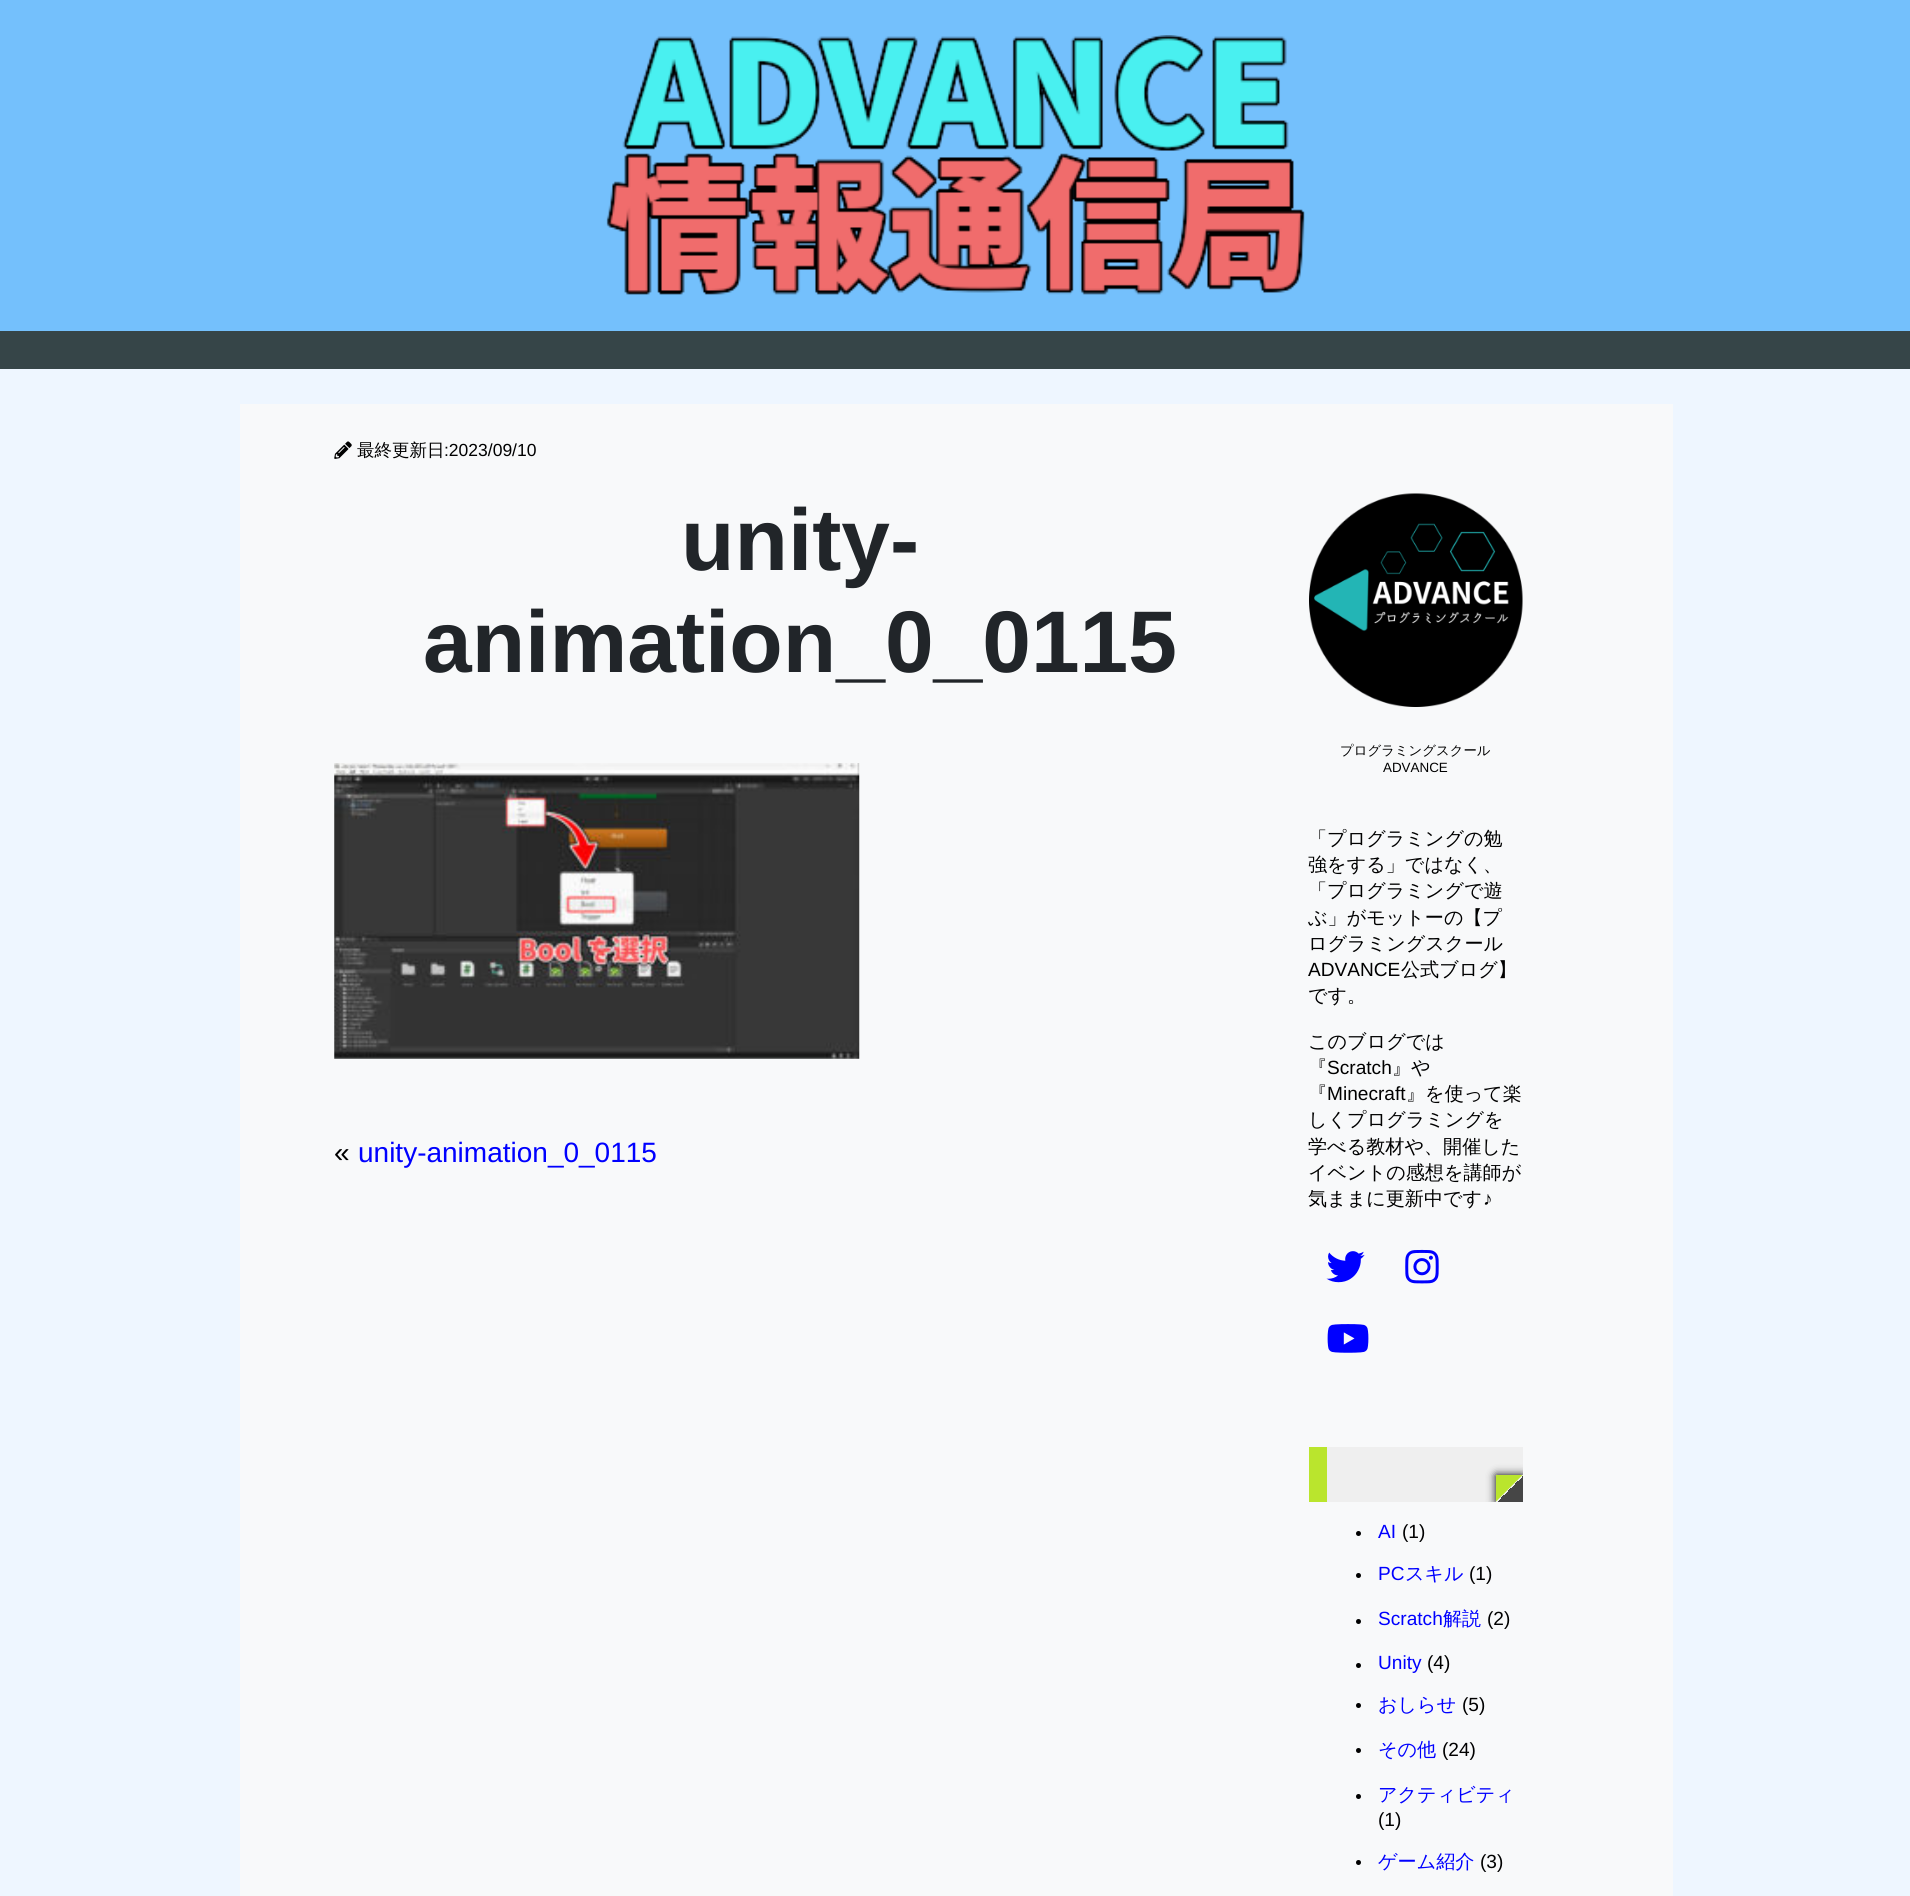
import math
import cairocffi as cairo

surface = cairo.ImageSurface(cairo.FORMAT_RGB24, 1910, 1896)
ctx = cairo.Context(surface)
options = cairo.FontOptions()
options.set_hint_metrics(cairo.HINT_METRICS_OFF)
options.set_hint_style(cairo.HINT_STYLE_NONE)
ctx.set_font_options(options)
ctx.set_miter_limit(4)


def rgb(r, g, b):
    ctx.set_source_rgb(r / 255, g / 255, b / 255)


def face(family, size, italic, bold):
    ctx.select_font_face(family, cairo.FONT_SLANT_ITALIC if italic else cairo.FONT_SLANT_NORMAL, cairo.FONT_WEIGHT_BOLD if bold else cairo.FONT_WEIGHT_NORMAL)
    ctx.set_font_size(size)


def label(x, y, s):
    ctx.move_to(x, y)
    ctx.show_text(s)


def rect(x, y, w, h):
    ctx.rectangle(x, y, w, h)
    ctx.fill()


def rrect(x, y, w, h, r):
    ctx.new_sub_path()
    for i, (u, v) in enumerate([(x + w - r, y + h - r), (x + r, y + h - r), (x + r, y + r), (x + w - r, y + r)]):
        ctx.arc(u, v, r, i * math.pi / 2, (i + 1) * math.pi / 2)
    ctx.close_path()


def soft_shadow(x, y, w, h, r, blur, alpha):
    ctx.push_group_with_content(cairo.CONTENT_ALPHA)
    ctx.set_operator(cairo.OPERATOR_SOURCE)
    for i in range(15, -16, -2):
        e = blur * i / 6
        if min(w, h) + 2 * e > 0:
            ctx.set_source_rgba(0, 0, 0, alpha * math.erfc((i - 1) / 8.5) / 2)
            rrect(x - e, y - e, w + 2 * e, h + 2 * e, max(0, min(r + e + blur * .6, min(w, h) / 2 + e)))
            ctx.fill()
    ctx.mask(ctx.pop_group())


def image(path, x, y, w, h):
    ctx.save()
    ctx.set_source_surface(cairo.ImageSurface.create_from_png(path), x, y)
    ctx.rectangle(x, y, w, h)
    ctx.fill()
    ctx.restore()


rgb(238, 246, 255)
ctx.paint()
rgb(116, 192, 252)
rect(0, 0, 1910, 331)
image('image0.png', 606, 35, 699, 260)
rgb(54, 69, 72)
rect(0, 331, 1910, 38)
rgb(248, 249, 250)
rect(240, 404, 1433, 1492)
image('image1.png', 334, 441, 18, 18)
face('WenQuanYi Zen Hei Medium', 17.5, 0, 0)
rgb(0, 0, 0)
label(357, 456, '最終更新日')
face('Liberation Sans', 17.5, 0, 0)
label(444, 456, ':2023/09/10')
face('Liberation Sans', 87.5, 0, 1)
rgb(33, 37, 41)
label(681, 570, 'unity-')
label(423, 672, 'animation_0_0115')
image('image2.png', 334, 763, 526, 296)
face('Liberation Sans', 28, 0, 0)
rgb(0, 0, 0)
label(334, 1162, '«')
rgb(0, 0, 255)
label(358, 1162, 'unity-animation_0_0115')
image('image3.png', 1309, 493, 214, 214)
face('WenQuanYi Zen Hei Medium', 13.4, 0, 0)
rgb(0, 0, 0)
label(1340, 755, 'プログラミングスクール')
face('Liberation Sans', 13.4, 0, 0)
label(1383, 772, 'ADVANCE')
face('WenQuanYi Zen Hei Medium', 19.1, 0, 0)
label(1308, 845, '「プログラミングの勉')
label(1308, 871, '強をする」ではなく、')
label(1308, 897, '「プログラミングで遊')
label(1308, 924, 'ぶ」がモットーの【プ')
label(1308, 950, 'ログラミングスクール')
face('Liberation Sans', 19.1, 0, 0)
label(1308, 976, 'ADVANCE')
face('WenQuanYi Zen Hei Medium', 19.1, 0, 0)
label(1401, 976, '公式ブログ】')
label(1308, 1002, 'です。')
label(1308, 1048, 'このブログでは')
label(1308, 1074, '『')
face('Liberation Sans', 19.1, 0, 0)
label(1327, 1074, 'Scratch')
face('WenQuanYi Zen Hei Medium', 19.1, 0, 0)
label(1392, 1074, '』や')
label(1308, 1100, '『')
face('Liberation Sans', 19.1, 0, 0)
label(1327, 1100, 'Minecraft')
face('WenQuanYi Zen Hei Medium', 19.1, 0, 0)
label(1406, 1100, '』を使って楽')
label(1308, 1126, 'しくプログラミングを')
label(1308, 1153, '学べる教材や、開催した')
label(1308, 1179, 'イベントの感想を講師が')
label(1308, 1205, '気ままに更新中です')
face('Liberation Sans', 19.1, 0, 0)
label(1483, 1205, '♪')
image('image4.png', 1326, 1251, 39, 32)
image('image5.png', 1405, 1249, 34, 35)
image('image6.png', 1327, 1324, 42, 29)
gradient = cairo.LinearGradient(1487, 1537, 1362, 1412)
gradient.add_color_stop_rgba(0.1, 0.275, 0.275, 0.275, 1)
gradient.add_color_stop_rgba(0.1, 0.937, 0.937, 0.937, 1)
ctx.set_source(gradient)
rect(1327, 1447, 196, 55)
rgb(186, 229, 45)
rect(1309, 1447, 18, 55)
ctx.save()
ctx.rectangle(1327, 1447, 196, 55)
ctx.clip()
ctx.set_fill_rule(cairo.FILL_RULE_EVEN_ODD)
ctx.new_path()
ctx.move_to(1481, 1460)
ctx.line_to(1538, 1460)
ctx.line_to(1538, 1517)
ctx.line_to(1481, 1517)
ctx.close_path()
ctx.move_to(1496, 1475)
ctx.line_to(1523, 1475)
ctx.line_to(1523, 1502)
ctx.line_to(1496, 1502)
ctx.close_path()
ctx.clip()
rgb(0, 0, 0)
soft_shadow(1496, 1475, 27, 27, 0, 4.5, 1)
ctx.restore()
ctx.new_path()
ctx.move_to(1496, 1501.5)
ctx.line_to(1496, 1475)
ctx.line_to(1522.5, 1475)
ctx.close_path()
ctx.fill()
rgb(0, 0, 0)
ctx.arc(1358.5, 1533.5, 2.5, 0, 2 * math.pi)
ctx.fill()
rgb(0, 0, 255)
label(1378, 1538, 'AI')
rgb(0, 0, 0)
label(1402, 1538, '(1)')
ctx.new_path()
ctx.arc(1358.5, 1575.5, 2.5, 0, 2 * math.pi)
ctx.fill()
rgb(0, 0, 255)
label(1378, 1580, 'PC')
face('WenQuanYi Zen Hei Medium', 19.1, 0, 0)
label(1405, 1580, 'スキル')
face('Liberation Sans', 19.1, 0, 0)
rgb(0, 0, 0)
label(1469, 1580, '(1)')
ctx.new_path()
ctx.arc(1358.5, 1621.5, 2.5, 0, 2 * math.pi)
ctx.fill()
rgb(0, 0, 255)
label(1378, 1625, 'Scratch')
face('WenQuanYi Zen Hei Medium', 19.1, 0, 0)
label(1443, 1625, '解説')
face('Liberation Sans', 19.1, 0, 0)
rgb(0, 0, 0)
label(1487, 1625, '(2)')
ctx.new_path()
ctx.arc(1358.5, 1665.5, 2.5, 0, 2 * math.pi)
ctx.fill()
rgb(0, 0, 255)
label(1378, 1669, 'Unity')
rgb(0, 0, 0)
label(1427, 1669, '(4)')
ctx.new_path()
ctx.arc(1358.5, 1705.5, 2.5, 0, 2 * math.pi)
ctx.fill()
face('WenQuanYi Zen Hei Medium', 19.1, 0, 0)
rgb(0, 0, 255)
label(1378, 1711, 'おしらせ')
face('Liberation Sans', 19.1, 0, 0)
rgb(0, 0, 0)
label(1462, 1711, '(5)')
ctx.new_path()
ctx.arc(1358.5, 1750.5, 2.5, 0, 2 * math.pi)
ctx.fill()
face('WenQuanYi Zen Hei Medium', 19.1, 0, 0)
rgb(0, 0, 255)
label(1378, 1756, 'その他')
face('Liberation Sans', 19.1, 0, 0)
rgb(0, 0, 0)
label(1442, 1756, '(24)')
ctx.new_path()
ctx.arc(1358.5, 1796.5, 2.5, 0, 2 * math.pi)
ctx.fill()
face('WenQuanYi Zen Hei Medium', 19.1, 0, 0)
rgb(0, 0, 255)
label(1378, 1801, 'アクティビティ')
face('Liberation Sans', 19.1, 0, 0)
rgb(0, 0, 0)
label(1378, 1826, '(1)')
ctx.new_path()
ctx.arc(1358.5, 1862.5, 2.5, 0, 2 * math.pi)
ctx.fill()
face('WenQuanYi Zen Hei Medium', 19.1, 0, 0)
rgb(0, 0, 255)
label(1378, 1868, 'ゲーム紹介')
face('Liberation Sans', 19.1, 0, 0)
rgb(0, 0, 0)
label(1480, 1868, '(3)')
surface.write_to_png('render.png')
